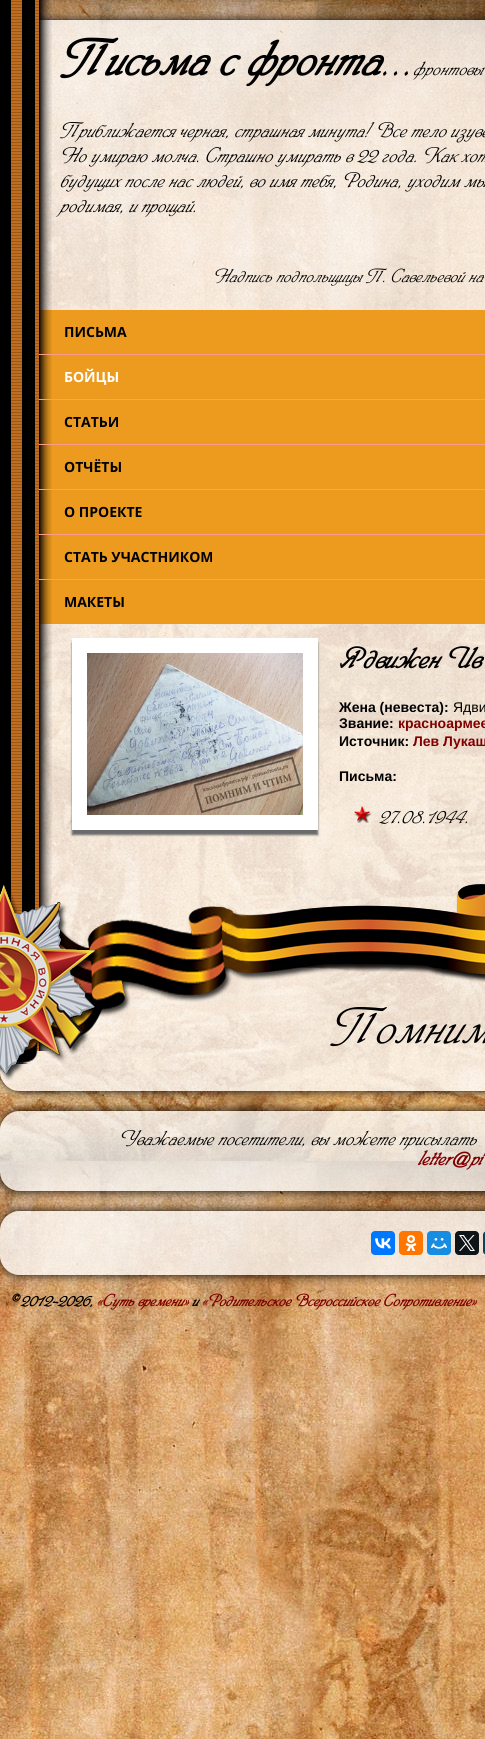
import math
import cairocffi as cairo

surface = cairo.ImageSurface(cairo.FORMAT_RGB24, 485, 1739)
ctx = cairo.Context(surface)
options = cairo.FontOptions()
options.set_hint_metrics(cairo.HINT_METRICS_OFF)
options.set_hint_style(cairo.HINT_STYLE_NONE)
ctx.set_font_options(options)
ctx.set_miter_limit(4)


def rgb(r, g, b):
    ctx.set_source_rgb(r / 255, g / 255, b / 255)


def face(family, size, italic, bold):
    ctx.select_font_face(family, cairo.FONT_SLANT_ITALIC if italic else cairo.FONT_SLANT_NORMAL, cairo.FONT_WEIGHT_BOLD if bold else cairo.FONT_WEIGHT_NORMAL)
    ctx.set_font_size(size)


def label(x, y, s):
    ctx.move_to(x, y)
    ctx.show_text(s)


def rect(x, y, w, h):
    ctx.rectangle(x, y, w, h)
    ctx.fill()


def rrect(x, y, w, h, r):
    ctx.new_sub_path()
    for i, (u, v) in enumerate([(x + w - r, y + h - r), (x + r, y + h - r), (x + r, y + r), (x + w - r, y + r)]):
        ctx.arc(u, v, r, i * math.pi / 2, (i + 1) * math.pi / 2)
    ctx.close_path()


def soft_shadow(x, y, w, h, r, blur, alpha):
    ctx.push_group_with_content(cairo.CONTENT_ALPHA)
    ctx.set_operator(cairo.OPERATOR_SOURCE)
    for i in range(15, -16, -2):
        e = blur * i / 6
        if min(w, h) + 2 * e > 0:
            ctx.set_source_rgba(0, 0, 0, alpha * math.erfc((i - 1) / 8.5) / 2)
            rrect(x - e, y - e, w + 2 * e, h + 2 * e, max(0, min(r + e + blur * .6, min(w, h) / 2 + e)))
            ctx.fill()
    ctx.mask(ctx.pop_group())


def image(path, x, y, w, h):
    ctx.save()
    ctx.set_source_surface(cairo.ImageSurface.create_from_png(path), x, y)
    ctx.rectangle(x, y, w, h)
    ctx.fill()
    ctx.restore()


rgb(255, 255, 255)
ctx.paint()
image('image0.png', 0, 0, 485, 1739)
ctx.save()
ctx.set_fill_rule(cairo.FILL_RULE_EVEN_ODD)
ctx.new_path()
ctx.move_to(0, 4)
ctx.line_to(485, 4)
ctx.line_to(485, 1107)
ctx.line_to(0, 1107)
ctx.close_path()
ctx.move_to(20, 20)
ctx.line_to(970, 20)
ctx.curve_to(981, 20, 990, 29, 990, 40)
ctx.line_to(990, 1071)
ctx.curve_to(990, 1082, 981, 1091, 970, 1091)
ctx.line_to(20, 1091)
ctx.curve_to(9, 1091, 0, 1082, 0, 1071)
ctx.line_to(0, 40)
ctx.curve_to(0, 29, 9, 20, 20, 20)
ctx.close_path()
ctx.clip()
rgb(0, 0, 0)
soft_shadow(0, 20, 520, 1071, 20, 5, 1)
ctx.restore()
ctx.set_source_rgba(1, 1, 1, 0.75)
rrect(0, 20, 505, 1071, 20)
ctx.fill()
rgb(237, 155, 31)
rect(39, 310, 446, 314)
image('image1.png', 0, 0, 52, 1051)
face('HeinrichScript', 48, 1, 1)
rgb(0, 0, 0)
label(60, 75, 'Письма с фронта')
face('HeinrichScript', 48, 1, 0)
label(381, 75, '...')
face('HeinrichScript', 19, 1, 0)
label(413, 75, 'фронтовы')
face('HeinrichScript', 20, 1, 0)
label(60, 137, 'Приближается черная, страшная минута! Все тело изуве')
label(60, 162, 'Но умираю молча. Страшно умирать в 22 года. Как хот')
label(60, 187, 'будущих после нас людей, во имя тебя, Родина, уходим мы')
label(60, 212, 'родимая, и прощай.')
face('HeinrichScript', 18, 1, 0)
label(213, 282, 'Надпись подпольщицы П. Савельевой на')
rgb(251, 153, 140)
rect(39, 354, 446, 1)
face('Open Sans', 14, 0, 1)
rgb(0, 0, 0)
label(64, 337, 'ПИСЬМА')
rgb(251, 153, 140)
rect(39, 399, 446, 1)
rgb(255, 255, 255)
label(64, 382, 'БОЙЦЫ')
rgb(251, 153, 140)
rect(39, 444, 446, 1)
rgb(0, 0, 0)
label(64, 427, 'СТАТЬИ')
rgb(251, 153, 140)
rect(39, 489, 446, 1)
rgb(0, 0, 0)
label(64, 472, 'ОТЧЁТЫ')
rgb(251, 153, 140)
rect(39, 534, 446, 1)
rgb(0, 0, 0)
label(64, 517, 'О ПРОЕКТЕ')
rgb(251, 153, 140)
rect(39, 579, 446, 1)
rgb(0, 0, 0)
label(64, 562, 'СТАТЬ УЧАСТНИКОМ')
label(64, 607, 'МАКЕТЫ')
rgb(106, 106, 106)
soft_shadow(72, 643, 246, 192, 0, 1, 1)
ctx.rectangle(79.5, 645.5, 231, 177)
rgb(255, 255, 255)
ctx.set_line_width(15)
ctx.stroke()
image('image2.png', 87, 653, 216, 162)
face('HeinrichScript', 28, 1, 1)
rgb(0, 0, 0)
label(339, 668, 'Ядвижен Ив')
face('Liberation Sans', 14, 0, 1)
label(339, 712, 'Жена (невеста):')
face('Liberation Sans', 14, 0, 0)
label(453, 712, 'Ядви')
face('Liberation Sans', 14, 0, 1)
label(339, 728, 'Звание:')
rgb(128, 0, 0)
label(398, 728, 'красноармее')
rgb(0, 0, 0)
label(339, 746, 'Источник:')
rgb(128, 0, 0)
label(413, 746, 'Лев Лукаш')
rgb(0, 0, 0)
label(339, 781, 'Письма:')
image('image3.png', 354, 806, 18, 17)
face('HeinrichScript', 20, 1, 0)
label(379, 823, '27.08.1944.')
image('image4.png', 0, 884, 485, 197)
face('HeinrichScript', 48, 1, 0)
label(330, 1043, 'Помним')
ctx.save()
ctx.set_fill_rule(cairo.FILL_RULE_EVEN_ODD)
ctx.new_path()
ctx.move_to(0, 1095)
ctx.line_to(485, 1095)
ctx.line_to(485, 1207)
ctx.line_to(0, 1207)
ctx.close_path()
ctx.move_to(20, 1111)
ctx.line_to(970, 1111)
ctx.curve_to(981, 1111, 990, 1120, 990, 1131)
ctx.line_to(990, 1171)
ctx.curve_to(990, 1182, 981, 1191, 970, 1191)
ctx.line_to(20, 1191)
ctx.curve_to(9, 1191, 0, 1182, 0, 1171)
ctx.line_to(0, 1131)
ctx.curve_to(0, 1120, 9, 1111, 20, 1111)
ctx.close_path()
ctx.clip()
rgb(0, 0, 0)
soft_shadow(0, 1111, 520, 80, 20, 5, 1)
ctx.restore()
ctx.set_source_rgba(1, 1, 1, 0.75)
rrect(0, 1111, 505, 80, 20)
ctx.fill()
face('HeinrichScript', 20, 1, 0)
rgb(0, 0, 0)
label(119, 1145, 'Уважаемые посетители, вы можете присылать')
face('HeinrichScript', 20, 1, 1)
rgb(128, 0, 0)
label(418, 1165, 'letter@pi')
ctx.save()
ctx.set_fill_rule(cairo.FILL_RULE_EVEN_ODD)
ctx.new_path()
ctx.move_to(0, 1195)
ctx.line_to(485, 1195)
ctx.line_to(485, 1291)
ctx.line_to(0, 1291)
ctx.close_path()
ctx.move_to(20, 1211)
ctx.line_to(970, 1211)
ctx.curve_to(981, 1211, 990, 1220, 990, 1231)
ctx.line_to(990, 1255)
ctx.curve_to(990, 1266, 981, 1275, 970, 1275)
ctx.line_to(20, 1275)
ctx.curve_to(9, 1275, 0, 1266, 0, 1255)
ctx.line_to(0, 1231)
ctx.curve_to(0, 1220, 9, 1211, 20, 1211)
ctx.close_path()
ctx.clip()
rgb(0, 0, 0)
soft_shadow(0, 1211, 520, 64, 20, 5, 1)
ctx.restore()
ctx.set_source_rgba(1, 1, 1, 0.75)
rrect(0, 1211, 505, 64, 20)
ctx.fill()
rgb(0, 119, 255)
rrect(371, 1231, 24, 24, 4)
ctx.fill()
image('image5.png', 375, 1238, 16, 11)
rgb(255, 119, 0)
rrect(399, 1231, 24, 24, 4)
ctx.fill()
image('image6.png', 405, 1235, 12, 16)
rgb(22, 141, 226)
rrect(427, 1231, 24, 24, 4)
ctx.fill()
image('image7.png', 431, 1238, 16, 11)
rgb(15, 20, 25)
rrect(455, 1231, 24, 24, 4)
ctx.fill()
image('image8.png', 459, 1235, 16, 16)
rgb(13, 66, 90)
rrect(483, 1231, 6, 24, 4)
ctx.fill()
face('HeinrichScript', 16, 1, 1)
rgb(0, 0, 0)
label(9, 1306, '© 2012-2026,')
rgb(128, 0, 0)
label(97, 1306, '«Суть времени»')
rgb(0, 0, 0)
label(192, 1306, 'и')
rgb(128, 0, 0)
label(202, 1306, '«Родительское Всероссийское Сопротивление»')
surface.write_to_png('render.png')
